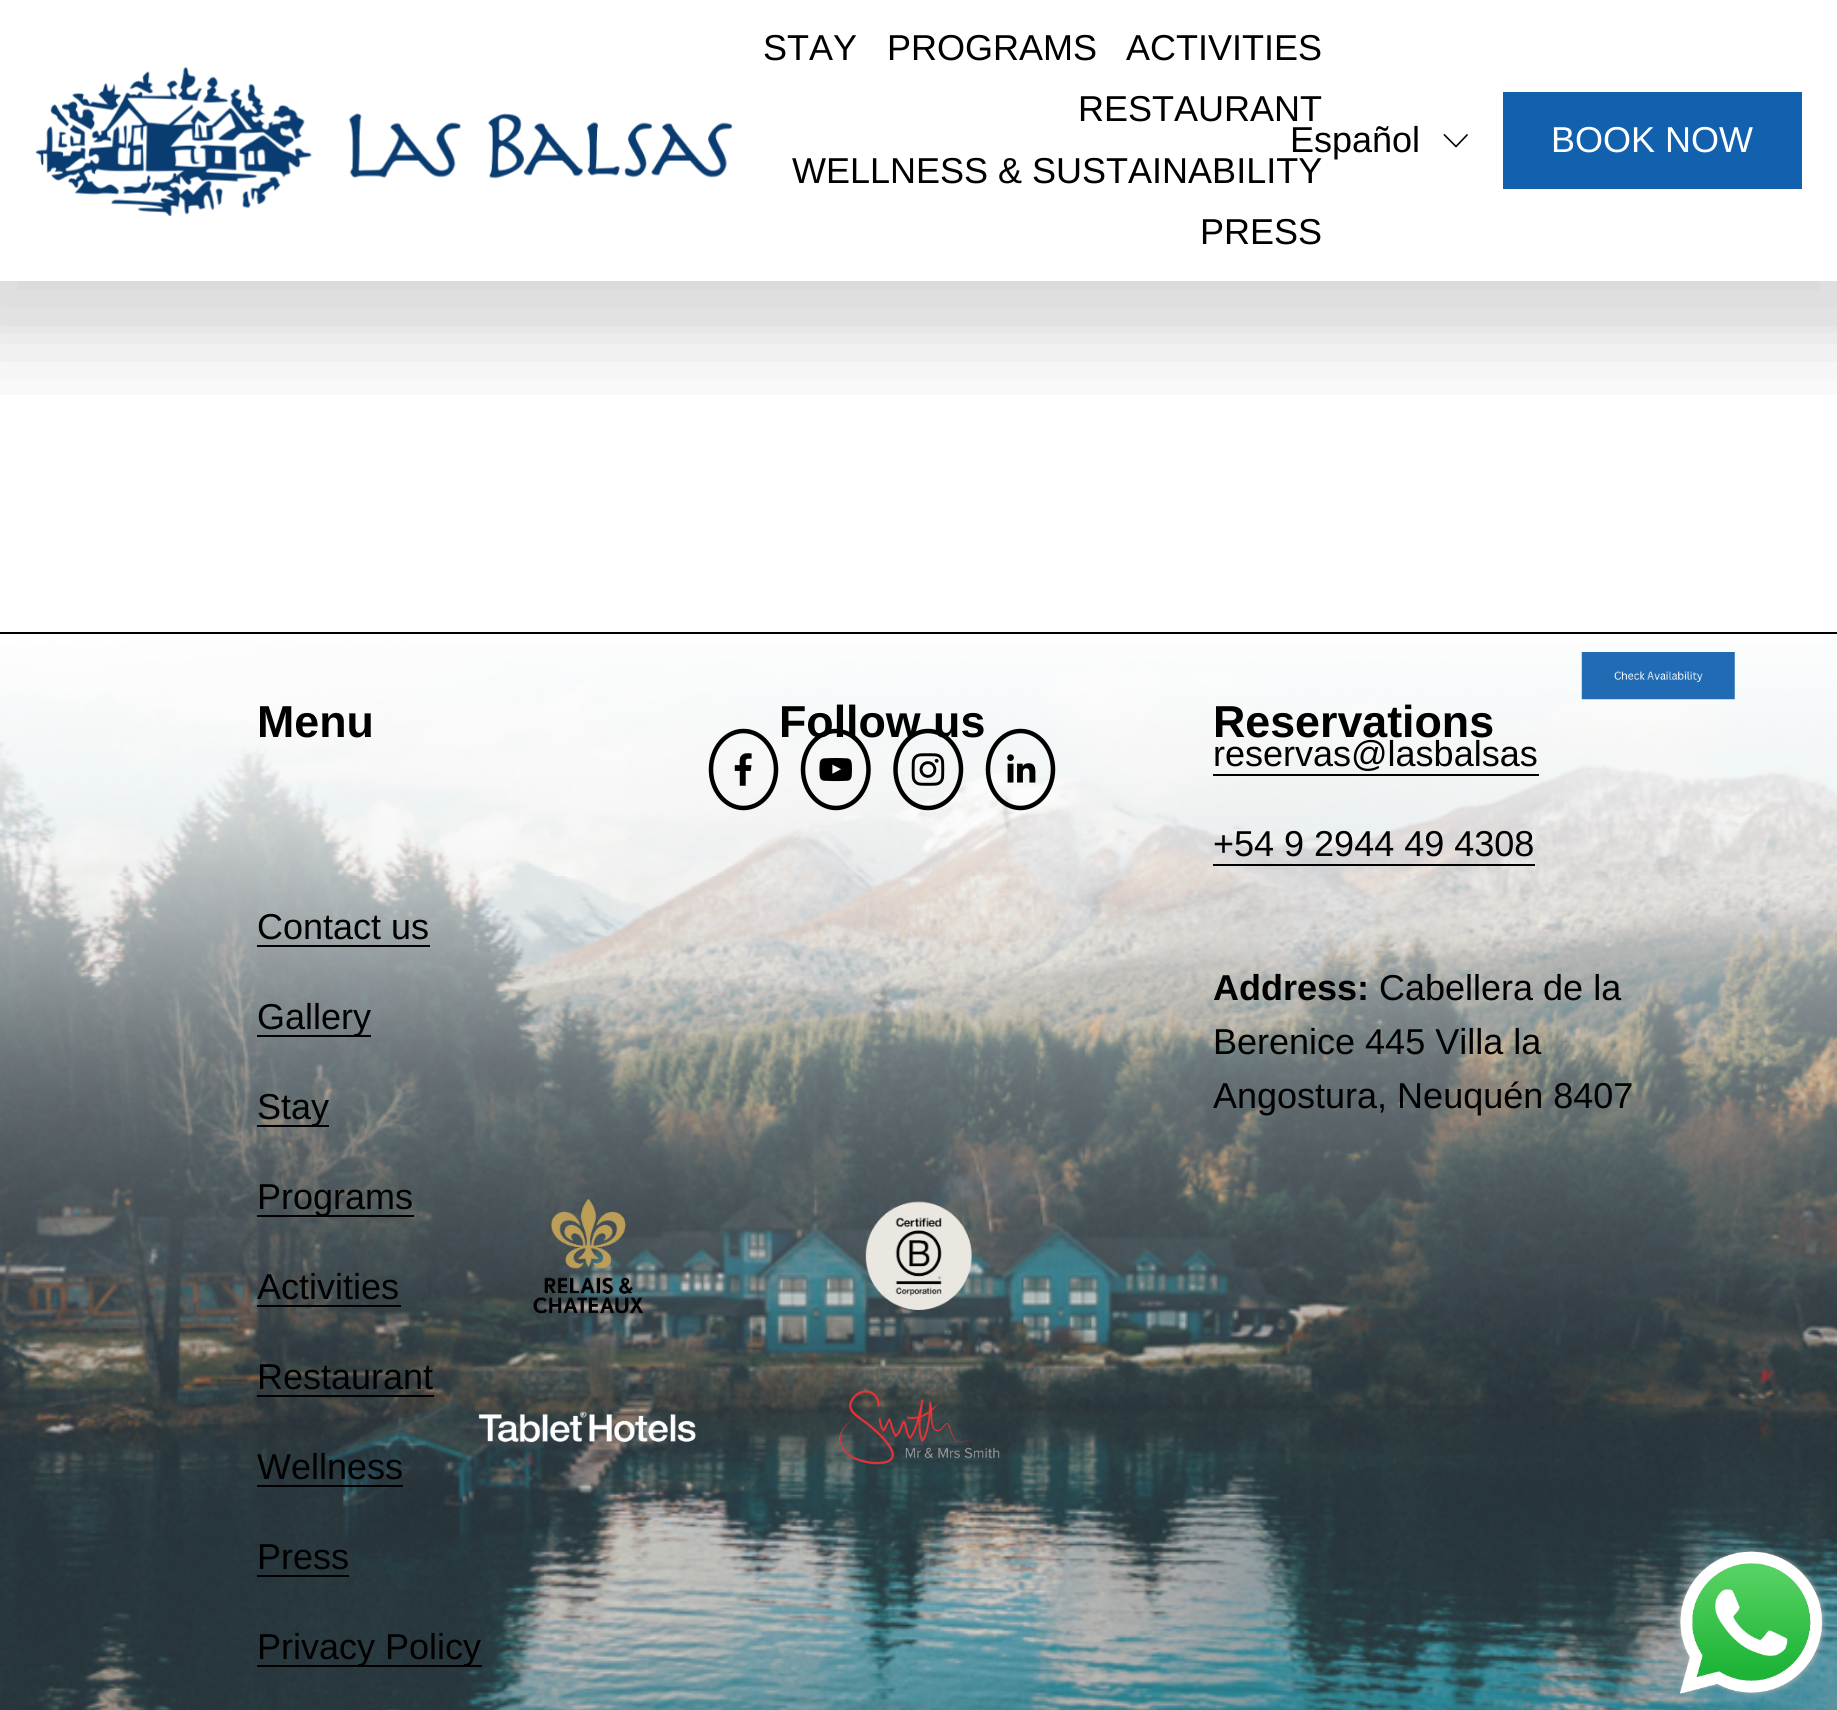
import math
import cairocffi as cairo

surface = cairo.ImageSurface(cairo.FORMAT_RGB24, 1837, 1710)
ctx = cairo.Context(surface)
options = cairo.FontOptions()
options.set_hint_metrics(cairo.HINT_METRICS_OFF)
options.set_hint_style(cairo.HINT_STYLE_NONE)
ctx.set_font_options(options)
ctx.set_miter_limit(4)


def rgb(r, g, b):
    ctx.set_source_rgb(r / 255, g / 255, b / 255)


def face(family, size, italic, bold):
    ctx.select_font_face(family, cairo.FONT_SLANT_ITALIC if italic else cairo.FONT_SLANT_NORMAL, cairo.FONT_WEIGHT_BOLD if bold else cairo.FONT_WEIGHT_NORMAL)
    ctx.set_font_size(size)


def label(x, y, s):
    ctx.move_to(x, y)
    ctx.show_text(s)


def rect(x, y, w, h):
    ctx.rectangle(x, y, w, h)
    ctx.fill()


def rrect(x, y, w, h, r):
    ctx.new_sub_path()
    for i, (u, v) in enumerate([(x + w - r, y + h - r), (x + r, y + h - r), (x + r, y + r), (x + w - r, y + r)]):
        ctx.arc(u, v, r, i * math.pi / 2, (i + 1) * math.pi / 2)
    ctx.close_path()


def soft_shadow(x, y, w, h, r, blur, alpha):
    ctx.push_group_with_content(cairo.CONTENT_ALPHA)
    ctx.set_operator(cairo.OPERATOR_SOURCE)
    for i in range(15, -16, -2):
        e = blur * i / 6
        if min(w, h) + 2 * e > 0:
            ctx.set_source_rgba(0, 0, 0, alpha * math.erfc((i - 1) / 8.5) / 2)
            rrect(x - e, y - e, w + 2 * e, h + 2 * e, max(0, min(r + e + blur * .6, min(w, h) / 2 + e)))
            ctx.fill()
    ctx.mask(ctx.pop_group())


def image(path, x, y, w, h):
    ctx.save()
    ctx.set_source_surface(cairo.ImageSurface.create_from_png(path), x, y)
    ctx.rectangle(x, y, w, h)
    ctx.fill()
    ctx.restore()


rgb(250, 250, 250)
ctx.paint()
rgb(255, 255, 255)
rect(0, 0, 1837, 281)
rect(0, 333, 1837, 308)
ctx.save()
ctx.rectangle(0, 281, 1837, 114)
ctx.clip()
rgb(0, 0, 0)
soft_shadow(-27, 0, 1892, 335, 0, 54, 0.15)
ctx.restore()
image('image0.png', 36, 67, 697, 149)
face('Arimo', 36, 0, 0)
rgb(0, 0, 0)
label(763, 60, 'STAY')
label(887, 60, 'PROGRAMS')
label(1126, 60, 'ACTIVITIES')
label(1078, 121, 'RESTAURANT')
label(792, 183, 'WELLNESS & SUSTAINABILITY')
label(1200, 244, 'PRESS')
label(1290, 152, 'Español')
ctx.new_path()
ctx.move_to(1467, 135)
ctx.line_to(1456, 146.5)
ctx.line_to(1444.5, 135)
ctx.set_line_width(1.6)
ctx.set_line_cap(cairo.LINE_CAP_SQUARE)
ctx.stroke()
rgb(17, 97, 174)
rect(1503, 92, 299, 97)
rgb(255, 255, 255)
label(1551, 152, 'BOOK NOW')
image('image1.png', 0, 641, 1837, 1069)
rgb(0, 0, 0)
rect(0, 632, 1837, 2)
image('image2.png', 1581, 652, 154, 48)
face('Arimo', 44.75, 0, 1)
label(257, 737, 'Menu')
ctx.new_path()
ctx.move_to(836, 731)
ctx.curve_to(854, 731, 868.5, 748.5, 868.5, 769.5)
ctx.curve_to(868.5, 790.5, 854, 808, 836, 808)
ctx.curve_to(818, 808, 803, 790.5, 803, 769.5)
ctx.curve_to(803, 748.5, 818, 731, 836, 731)
ctx.close_path()
ctx.set_line_width(4.5)
ctx.set_line_cap(cairo.LINE_CAP_BUTT)
ctx.stroke()
ctx.new_path()
ctx.move_to(928, 731)
ctx.curve_to(946, 731, 961, 748.5, 961, 769.5)
ctx.curve_to(961, 790.5, 946, 808, 928, 808)
ctx.curve_to(910, 808, 895.5, 790.5, 895.5, 769.5)
ctx.curve_to(895.5, 748.5, 910, 731, 928, 731)
ctx.close_path()
ctx.stroke()
label(779, 737, 'Follow us')
label(1213, 737, 'Reservations')
ctx.new_path()
ctx.move_to(743.5, 731)
ctx.curve_to(761.5, 731, 776, 748.5, 776, 769.5)
ctx.curve_to(776, 790.5, 761.5, 808, 743.5, 808)
ctx.curve_to(725.5, 808, 711, 790.5, 711, 769.5)
ctx.curve_to(711, 748.5, 725.5, 731, 743.5, 731)
ctx.close_path()
ctx.stroke()
image('image3.png', 734, 753, 18, 33)
image('image4.png', 819, 758, 33, 24)
image('image5.png', 911, 753, 34, 33)
ctx.new_path()
ctx.move_to(1020.5, 731)
ctx.curve_to(1038.5, 731, 1053, 748.5, 1053, 769.5)
ctx.curve_to(1053, 790.5, 1038.5, 808, 1020.5, 808)
ctx.curve_to(1002.5, 808, 988, 790.5, 988, 769.5)
ctx.curve_to(988, 748.5, 1002.5, 731, 1020.5, 731)
ctx.close_path()
ctx.stroke()
image('image6.png', 1007, 754, 29, 29)
face('Arimo', 36, 0, 0)
label(1213, 766, 'reservas@lasbalsas')
rect(1213, 774, 326, 2)
label(1213, 856, '+54 9 2944 49 4308')
rect(1213, 864, 322, 2)
label(257, 939, 'Contact us')
rect(257, 945, 173, 2)
rect(257, 1035, 114, 2)
label(257, 1029, 'Gallery')
rect(257, 1125, 72, 2)
label(257, 1119, 'Stay')
rect(257, 1215, 157, 2)
label(257, 1209, 'Programs')
label(257, 1299, 'Activities')
rect(257, 1305, 144, 2)
label(257, 1389, 'Restaurant')
rect(257, 1395, 177, 2)
label(257, 1479, 'Wellness')
rect(257, 1485, 146, 2)
label(257, 1569, 'Press')
rect(257, 1575, 92, 2)
rect(257, 1665, 225, 2)
label(257, 1659, 'Privacy Policy')
face('Arimo', 36, 0, 1)
label(1213, 1000, 'Address:')
face('Arimo', 36, 0, 0)
label(1379, 1000, 'Cabellera de la')
label(1213, 1054, 'Berenice 445 Villa la')
label(1213, 1108, 'Angostura, Neuquén 8407')
image('image7.png', 533, 1199, 111, 115)
image('image8.png', 865, 1201, 107, 109)
image('image9.png', 478, 1411, 218, 32)
image('image10.png', 839, 1390, 161, 75)
image('image11.png', 1676, 1547, 152, 151)
surface.write_to_png('render.png')
